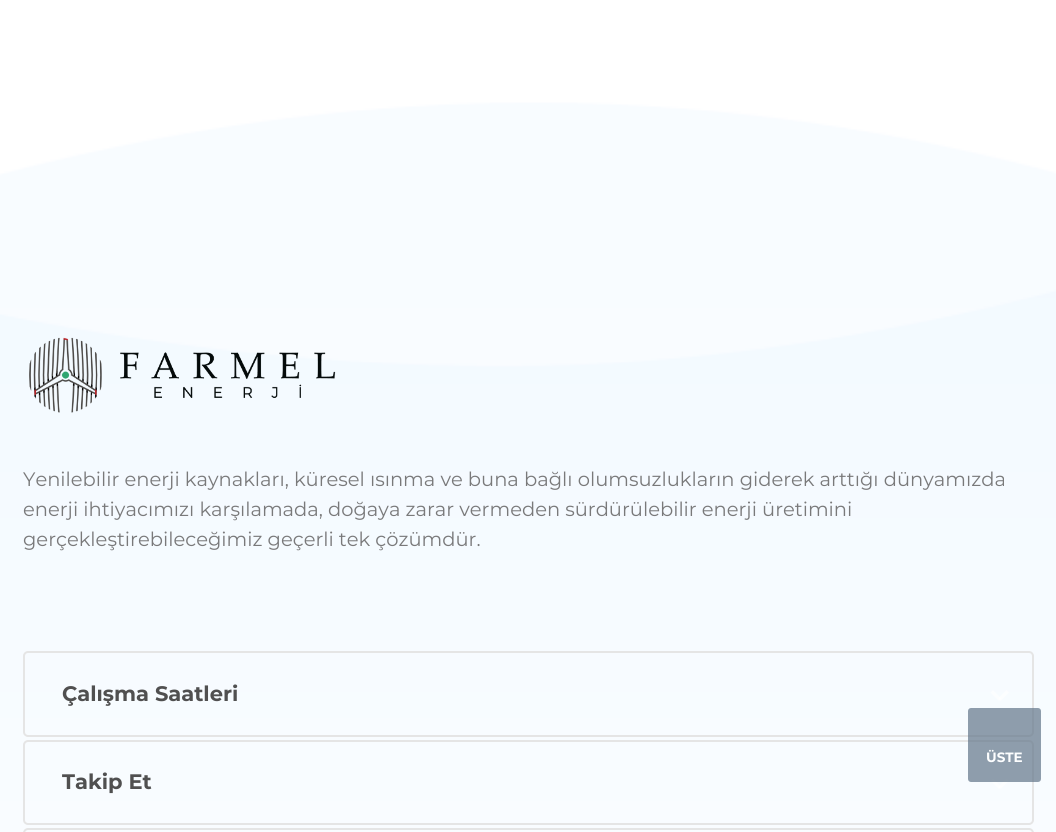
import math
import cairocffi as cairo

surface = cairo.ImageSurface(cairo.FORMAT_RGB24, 1056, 832)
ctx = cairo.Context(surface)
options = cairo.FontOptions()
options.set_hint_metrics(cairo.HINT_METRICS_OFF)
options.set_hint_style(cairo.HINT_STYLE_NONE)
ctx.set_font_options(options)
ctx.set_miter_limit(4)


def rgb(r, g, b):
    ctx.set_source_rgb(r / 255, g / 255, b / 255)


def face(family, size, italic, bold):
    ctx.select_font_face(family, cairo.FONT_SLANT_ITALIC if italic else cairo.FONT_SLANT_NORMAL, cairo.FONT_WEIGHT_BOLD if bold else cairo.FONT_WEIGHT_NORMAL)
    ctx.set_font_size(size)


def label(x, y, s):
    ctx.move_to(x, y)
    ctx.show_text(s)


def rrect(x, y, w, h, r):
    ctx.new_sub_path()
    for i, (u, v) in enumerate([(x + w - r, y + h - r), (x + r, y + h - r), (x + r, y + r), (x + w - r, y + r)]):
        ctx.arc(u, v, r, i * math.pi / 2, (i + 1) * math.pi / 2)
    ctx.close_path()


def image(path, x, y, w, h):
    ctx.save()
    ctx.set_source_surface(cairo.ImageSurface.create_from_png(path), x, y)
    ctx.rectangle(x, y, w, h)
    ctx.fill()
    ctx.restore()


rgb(255, 255, 255)
ctx.paint()
image('image0.png', 0, 62, 1056, 770)
image('image1.png', 29, 337, 307, 76)
face('Montserrat', 19.5, 0, 0)
rgb(121, 121, 122)
label(23, 486, 'Yenilebilir enerji kaynakları, küresel ısınma ve buna bağlı olumsuzlukların giderek arttığı dünyamızda')
label(23, 516, 'enerji ihtiyacımızı karşılamada, doğaya zarar vermeden sürdürülebilir enerji üretimini')
label(23, 546, 'gerçekleştirebileceğimiz geçerli tek çözümdür.')
rrect(24, 652, 1009, 84, 4)
rgb(229, 229, 229)
ctx.stroke()
face('Montserrat', 21, 0, 1)
rgb(80, 80, 80)
label(62, 701, 'Çalışma Saatleri')
rgb(252, 254, 255)
ctx.new_path()
ctx.move_to(993, 690)
ctx.line_to(1001.5, 698.5)
ctx.line_to(999, 701)
ctx.line_to(990.5, 692.5)
ctx.close_path()
ctx.fill()
ctx.set_source_rgba(1, 1, 1, 0.6)
ctx.new_path()
ctx.move_to(998, 698.5)
ctx.line_to(1006.5, 690)
ctx.line_to(1009, 692.5)
ctx.line_to(1000.5, 701)
ctx.close_path()
ctx.fill()
rrect(24, 741, 1009, 83, 4)
rgb(229, 229, 229)
ctx.stroke()
rgb(80, 80, 80)
label(62, 789, 'Takip Et')
rgb(252, 254, 255)
ctx.new_path()
ctx.move_to(993, 778.5)
ctx.line_to(1001.5, 787)
ctx.line_to(999, 789)
ctx.line_to(990.5, 780.5)
ctx.close_path()
ctx.fill()
ctx.set_source_rgba(1, 1, 1, 0.6)
ctx.new_path()
ctx.move_to(998, 787)
ctx.line_to(1006.5, 778.5)
ctx.line_to(1009, 780.5)
ctx.line_to(1000.5, 789)
ctx.close_path()
ctx.fill()
rrect(24, 829, 1009, 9, 4)
rgb(229, 229, 229)
ctx.stroke()
ctx.set_source_rgba(0.384, 0.463, 0.541, 0.7)
rrect(968, 708, 73, 74, 3)
ctx.fill()
face('Montserrat', 13.5, 0, 1)
rgb(253, 254, 255)
label(986, 762, 'ÜSTE')
surface.write_to_png('render.png')
